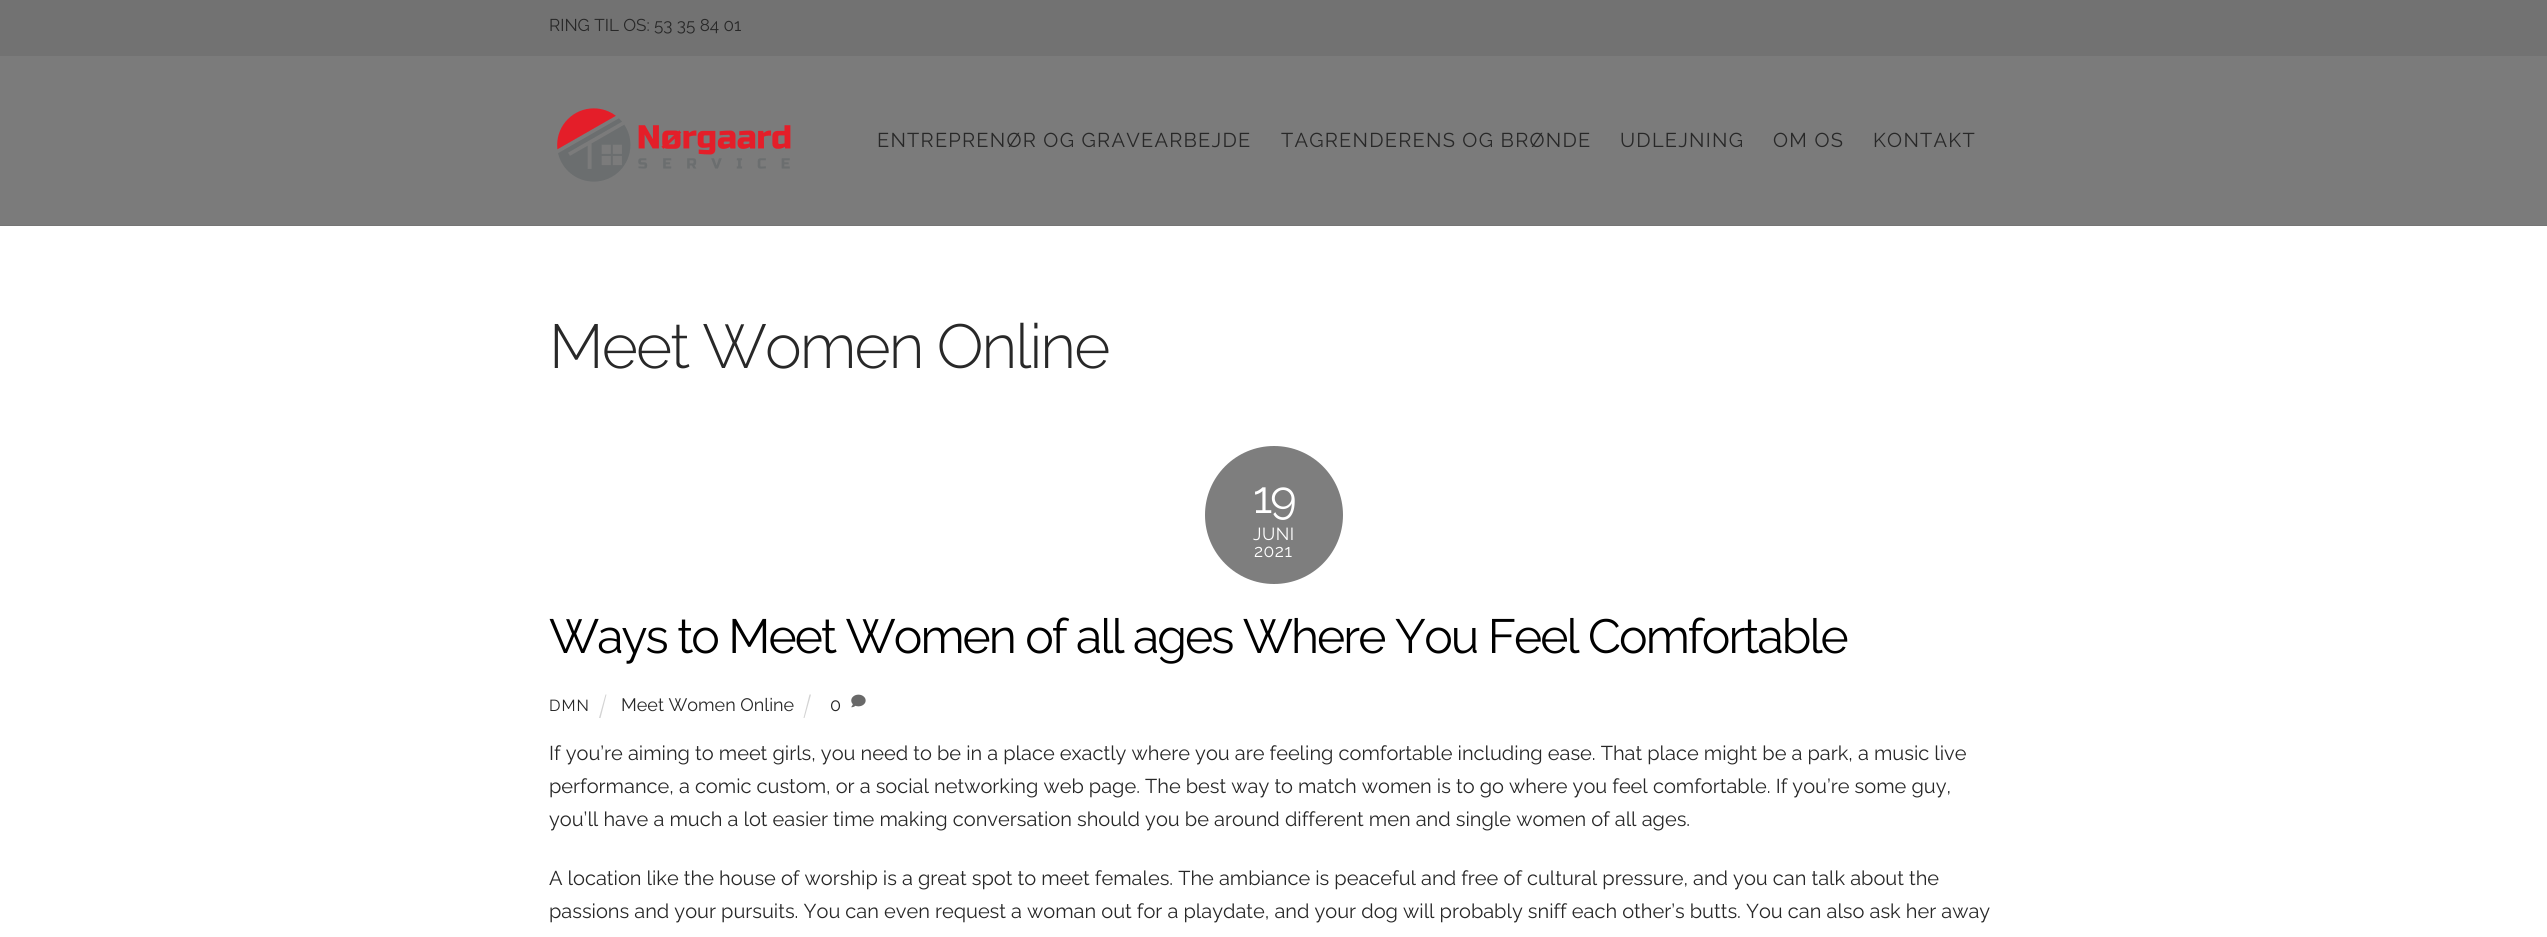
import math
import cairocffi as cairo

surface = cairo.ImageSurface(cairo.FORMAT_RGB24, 2547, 937)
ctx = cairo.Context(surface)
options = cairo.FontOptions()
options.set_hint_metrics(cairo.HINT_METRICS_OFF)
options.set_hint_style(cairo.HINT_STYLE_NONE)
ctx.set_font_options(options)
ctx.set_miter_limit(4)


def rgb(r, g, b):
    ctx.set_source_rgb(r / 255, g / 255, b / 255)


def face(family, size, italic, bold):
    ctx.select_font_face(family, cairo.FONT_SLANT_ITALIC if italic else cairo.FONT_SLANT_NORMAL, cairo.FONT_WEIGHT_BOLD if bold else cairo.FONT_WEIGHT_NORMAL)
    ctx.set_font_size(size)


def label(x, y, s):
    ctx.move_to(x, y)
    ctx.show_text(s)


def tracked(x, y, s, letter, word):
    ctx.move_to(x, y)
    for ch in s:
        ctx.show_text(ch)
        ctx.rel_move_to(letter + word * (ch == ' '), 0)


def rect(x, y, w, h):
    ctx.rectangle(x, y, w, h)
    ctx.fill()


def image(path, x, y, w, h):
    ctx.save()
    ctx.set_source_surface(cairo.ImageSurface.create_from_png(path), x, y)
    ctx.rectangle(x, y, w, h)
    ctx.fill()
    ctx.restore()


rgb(255, 255, 255)
ctx.paint()
rgb(123, 123, 123)
rect(0, 56, 2547, 169)
rgb(117, 117, 117)
rect(0, 225, 2547, 1)
rgb(114, 114, 114)
rect(0, 0, 2547, 56)
face('Raleway', 17.1, 0, 0)
rgb(40, 40, 40)
label(549, 31, 'RING TIL OS: 53 35 84 01')
image('image0.png', 557, 108, 234, 74)
face('Raleway', 20, 0, 0)
tracked(877, 147, 'ENTREPRENØR OG GRAVEARBEJDE', 1.25, 0)
tracked(1281, 147, 'TAGRENDERENS OG BRØNDE', 1.25, 0)
tracked(1620, 147, 'UDLEJNING', 1.25, 0)
tracked(1773, 147, 'OM OS', 1.25, 0)
tracked(1873, 147, 'KONTAKT', 1.25, 0)
face('Raleway Light', 62, 0, 0)
tracked(549, 368, 'Meet Women Online', -1.9, 0)
rgb(126, 126, 126)
ctx.new_path()
ctx.arc(1274, 515, 69, 0, 2 * math.pi)
ctx.fill()
face('Raleway', 45, 0, 0)
rgb(255, 255, 255)
tracked(1253, 513, '19', -2, 0)
face('Raleway', 17.5, 0, 0)
tracked(1253, 540, 'JUNI', 0.5, 0)
tracked(1254, 557, '2021', 0.5, 0)
face('Raleway', 48, 0, 0)
rgb(0, 0, 0)
tracked(549, 653, 'Ways to Meet Women of all ages Where You Feel Comfortable', -1.92, 0)
face('Raleway', 16, 0, 0)
rgb(40, 40, 40)
tracked(549, 711, 'DMN', 1, 0)
rgb(211, 211, 211)
ctx.new_path()
ctx.move_to(605.5, 694.5)
ctx.line_to(606.5, 694.5)
ctx.line_to(600.5, 718)
ctx.line_to(599, 718)
ctx.close_path()
ctx.fill()
face('Raleway', 18, 0, 0)
rgb(40, 40, 40)
label(621, 711, 'Meet Women Online')
rgb(211, 211, 211)
ctx.new_path()
ctx.move_to(809.5, 694.5)
ctx.line_to(811, 694.5)
ctx.line_to(804.5, 718)
ctx.line_to(803.5, 718)
ctx.close_path()
ctx.fill()
rgb(40, 40, 40)
label(830, 711, '0')
image('image1.png', 851, 694, 15, 14)
face('Raleway', 20, 0, 0)
label(549, 760, 'If you’re aiming to meet girls, you need to be in a place exactly where you are feeling comfortable including ease. That place might be a park, a music live')
label(549, 793, 'performance, a comic custom, or a social networking web page. The best way to match women is to go where you feel comfortable. If you’re some guy,')
label(549, 826, 'you’ll have a much a lot easier time making conversation should you be around different men and single women of all ages.')
label(549, 885, 'A location like the house of worship is a great spot to meet females. The ambiance is peaceful and free of cultural pressure, and you can talk about the')
label(549, 918, 'passions and your pursuits. You can even request a woman out for a playdate, and your dog will probably sniff each other’s butts. You can also ask her away')
surface.write_to_png('render.png')
